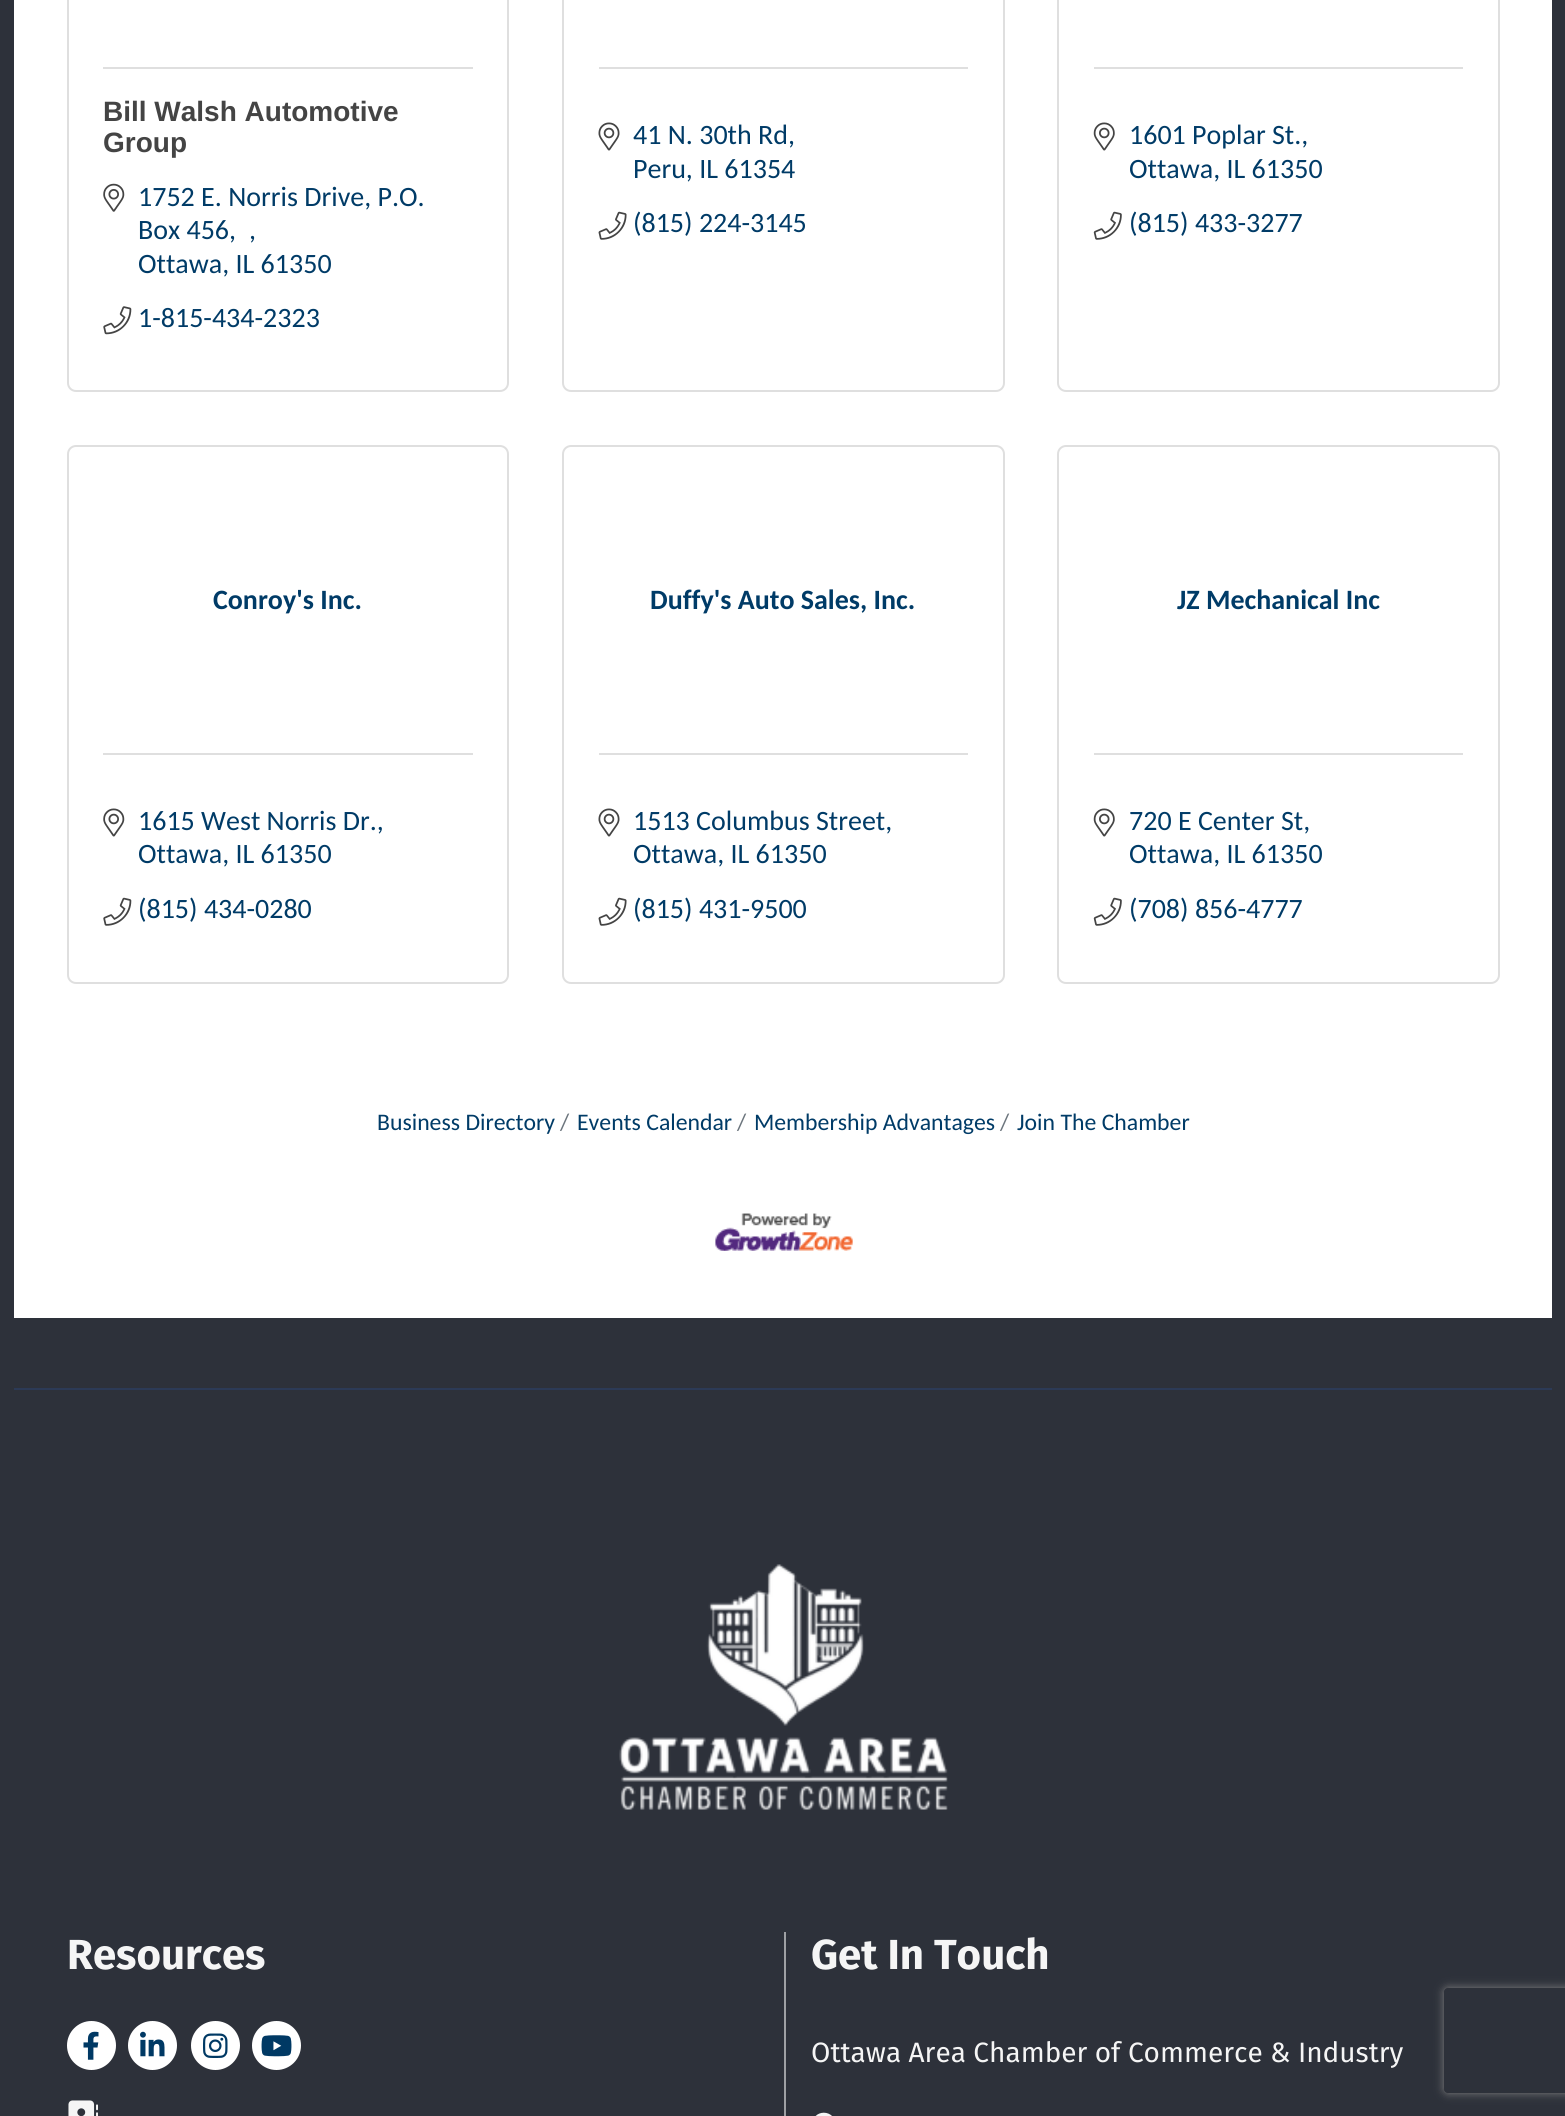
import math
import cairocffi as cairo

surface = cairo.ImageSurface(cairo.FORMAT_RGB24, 1565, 2116)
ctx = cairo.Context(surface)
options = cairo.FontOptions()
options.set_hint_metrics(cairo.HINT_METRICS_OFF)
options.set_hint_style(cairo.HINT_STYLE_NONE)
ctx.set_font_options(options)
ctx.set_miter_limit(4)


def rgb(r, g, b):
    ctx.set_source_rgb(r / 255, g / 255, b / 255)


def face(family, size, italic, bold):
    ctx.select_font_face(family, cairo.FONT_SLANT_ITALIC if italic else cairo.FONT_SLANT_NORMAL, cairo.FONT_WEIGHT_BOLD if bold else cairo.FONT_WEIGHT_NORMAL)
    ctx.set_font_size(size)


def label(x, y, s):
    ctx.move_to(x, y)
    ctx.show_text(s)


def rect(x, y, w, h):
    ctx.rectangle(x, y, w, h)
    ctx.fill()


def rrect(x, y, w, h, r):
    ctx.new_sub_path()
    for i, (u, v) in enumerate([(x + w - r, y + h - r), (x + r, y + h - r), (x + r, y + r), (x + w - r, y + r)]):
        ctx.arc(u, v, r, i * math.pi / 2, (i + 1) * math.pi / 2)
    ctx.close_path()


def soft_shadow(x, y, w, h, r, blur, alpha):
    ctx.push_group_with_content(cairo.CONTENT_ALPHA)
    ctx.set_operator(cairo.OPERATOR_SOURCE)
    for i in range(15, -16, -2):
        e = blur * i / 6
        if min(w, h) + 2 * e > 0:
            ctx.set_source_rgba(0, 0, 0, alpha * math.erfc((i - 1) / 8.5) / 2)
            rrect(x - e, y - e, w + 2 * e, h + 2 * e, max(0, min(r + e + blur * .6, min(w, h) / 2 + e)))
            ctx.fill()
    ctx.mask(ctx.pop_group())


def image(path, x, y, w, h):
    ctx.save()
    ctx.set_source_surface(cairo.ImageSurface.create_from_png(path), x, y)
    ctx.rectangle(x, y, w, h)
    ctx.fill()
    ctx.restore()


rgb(45, 49, 58)
ctx.paint()
rgb(255, 255, 255)
rect(14, 0, 1538, 1318)
rrect(68, -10, 440, 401, 8)
rgb(223, 223, 223)
ctx.stroke()
rect(103, 67, 370, 2)
face('Liberation Sans', 28, 0, 1)
rgb(68, 68, 68)
label(103, 121, 'Bill Walsh Automotive')
label(103, 152, 'Group')
image('image0.png', 103, 183, 22, 29)
face('Carlito', 28, 0, 0)
rgb(0, 59, 103)
label(138, 206, '1752 E. Norris Drive, P.O.')
label(138, 239, 'Box 456,')
label(249, 239, ',')
label(138, 273, 'Ottawa, IL 61350')
image('image1.png', 103, 306, 29, 29)
label(138, 327, '1-815-434-2323')
rrect(563, -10, 441, 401, 8)
rgb(223, 223, 223)
ctx.stroke()
rect(599, 67, 369, 2)
image('image2.png', 598, 122, 22, 29)
rgb(0, 59, 103)
label(633, 144, '41 N. 30th Rd,')
label(633, 178, 'Peru, IL 61354')
image('image3.png', 598, 211, 29, 29)
label(633, 232, '(815) 224-3145')
rrect(1058, -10, 441, 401, 8)
rgb(223, 223, 223)
ctx.stroke()
rect(1094, 67, 369, 2)
image('image4.png', 1093, 122, 22, 29)
rgb(0, 59, 103)
label(1129, 144, '1601 Poplar St.,')
label(1129, 178, 'Ottawa, IL 61350')
image('image5.png', 1093, 211, 29, 29)
label(1129, 232, '(815) 433-3277')
rrect(68, 446, 440, 537, 8)
rgb(223, 223, 223)
ctx.stroke()
face('Carlito', 28, 0, 1)
rgb(0, 59, 103)
label(213, 609, 'Conroy\'s Inc.')
rgb(223, 223, 223)
rect(103, 753, 370, 2)
image('image6.png', 103, 808, 22, 29)
face('Carlito', 28, 0, 0)
rgb(0, 59, 103)
label(138, 830, '1615 West Norris Dr.,')
label(138, 863, 'Ottawa, IL 61350')
image('image7.png', 103, 897, 29, 29)
label(138, 918, '(815) 434-0280')
rrect(563, 446, 441, 537, 8)
rgb(223, 223, 223)
ctx.stroke()
face('Carlito', 28, 0, 1)
rgb(0, 59, 103)
label(650, 609, 'Duffy\'s Auto Sales, Inc.')
rgb(223, 223, 223)
rect(599, 753, 369, 2)
image('image2.png', 598, 808, 22, 29)
face('Carlito', 28, 0, 0)
rgb(0, 59, 103)
label(633, 830, '1513 Columbus Street,')
label(633, 863, 'Ottawa, IL 61350')
image('image3.png', 598, 897, 29, 29)
label(633, 918, '(815) 431-9500')
rrect(1058, 446, 441, 537, 8)
rgb(223, 223, 223)
ctx.stroke()
face('Carlito', 28, 0, 1)
rgb(0, 59, 103)
label(1177, 609, 'JZ Mechanical Inc')
rgb(223, 223, 223)
rect(1094, 753, 369, 2)
image('image4.png', 1093, 808, 22, 29)
face('Carlito', 28, 0, 0)
rgb(0, 59, 103)
label(1129, 830, '720 E Center St,')
label(1129, 863, 'Ottawa, IL 61350')
image('image5.png', 1093, 897, 29, 29)
label(1129, 918, '(708) 856-4777')
face('Carlito', 23.75, 0, 0)
label(377, 1130, 'Business Directory')
rgb(108, 117, 125)
label(560, 1130, '/')
rgb(0, 59, 103)
label(577, 1130, 'Events Calendar')
rgb(108, 117, 125)
label(737, 1130, '/')
rgb(0, 59, 103)
label(754, 1130, 'Membership Advantages')
rgb(108, 117, 125)
label(1000, 1130, '/')
rgb(0, 59, 103)
label(1017, 1130, 'Join The Chamber')
image('image8.png', 715, 1213, 138, 38)
rgb(44, 58, 86)
rect(14, 1388, 1538, 2)
image('image9.png', 619, 1564, 329, 246)
face('Fira Sans', 42, 0, 1)
rgb(245, 245, 245)
label(67, 1969, 'Resources')
rgb(255, 255, 255)
ctx.new_path()
ctx.arc(91.5, 2045.5, 24.5, 0, 2 * math.pi)
ctx.fill()
image('image10.png', 83, 2031, 16, 29)
ctx.arc(152.5, 2045.5, 24.5, 0, 2 * math.pi)
ctx.fill()
image('image11.png', 140, 2031, 25, 26)
ctx.arc(215.5, 2045.5, 24.5, 0, 2 * math.pi)
ctx.fill()
image('image12.png', 203, 2033, 25, 25)
ctx.arc(276.5, 2045.5, 24.5, 0, 2 * math.pi)
ctx.fill()
image('image13.png', 261, 2035, 31, 22)
image('image14.png', 68, 2100, 30, 16)
rgb(158, 160, 164)
rect(784, 1932, 2, 184)
rgb(245, 245, 245)
label(811, 1969, 'Get In Touch')
face('Fira Sans', 28, 0, 0)
label(811, 2062, 'Ottawa Area Chamber of Commerce & Industry')
image('image15.png', 815, 2112, 17, 4)
ctx.save()
ctx.set_fill_rule(cairo.FILL_RULE_EVEN_ODD)
ctx.new_path()
ctx.move_to(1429, 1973)
ctx.line_to(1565, 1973)
ctx.line_to(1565, 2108)
ctx.line_to(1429, 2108)
ctx.close_path()
ctx.move_to(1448, 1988)
ctx.line_to(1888, 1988)
ctx.curve_to(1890, 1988, 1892, 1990, 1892, 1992)
ctx.line_to(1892, 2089)
ctx.curve_to(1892, 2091, 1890, 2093, 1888, 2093)
ctx.line_to(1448, 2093)
ctx.curve_to(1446, 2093, 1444, 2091, 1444, 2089)
ctx.line_to(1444, 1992)
ctx.curve_to(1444, 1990, 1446, 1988, 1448, 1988)
ctx.close_path()
ctx.clip()
rgb(128, 128, 128)
soft_shadow(1444, 1988, 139, 105, 4, 4.5, 1)
ctx.restore()
surface.write_to_png('render.png')
